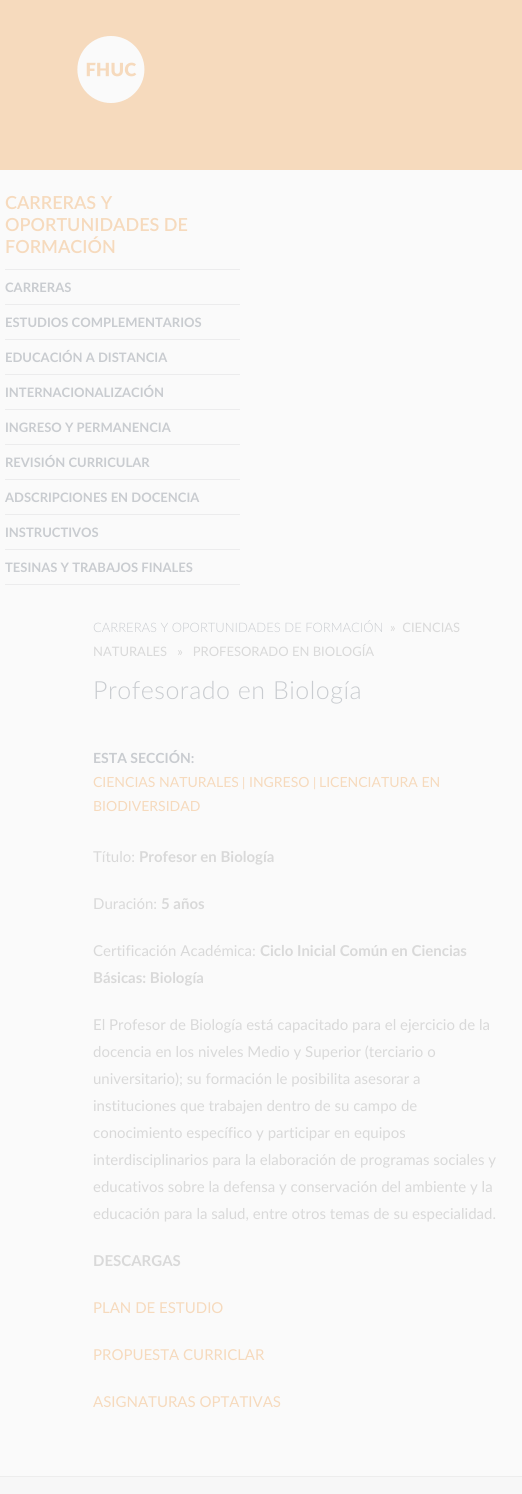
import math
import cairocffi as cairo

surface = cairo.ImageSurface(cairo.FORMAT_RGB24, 522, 1494)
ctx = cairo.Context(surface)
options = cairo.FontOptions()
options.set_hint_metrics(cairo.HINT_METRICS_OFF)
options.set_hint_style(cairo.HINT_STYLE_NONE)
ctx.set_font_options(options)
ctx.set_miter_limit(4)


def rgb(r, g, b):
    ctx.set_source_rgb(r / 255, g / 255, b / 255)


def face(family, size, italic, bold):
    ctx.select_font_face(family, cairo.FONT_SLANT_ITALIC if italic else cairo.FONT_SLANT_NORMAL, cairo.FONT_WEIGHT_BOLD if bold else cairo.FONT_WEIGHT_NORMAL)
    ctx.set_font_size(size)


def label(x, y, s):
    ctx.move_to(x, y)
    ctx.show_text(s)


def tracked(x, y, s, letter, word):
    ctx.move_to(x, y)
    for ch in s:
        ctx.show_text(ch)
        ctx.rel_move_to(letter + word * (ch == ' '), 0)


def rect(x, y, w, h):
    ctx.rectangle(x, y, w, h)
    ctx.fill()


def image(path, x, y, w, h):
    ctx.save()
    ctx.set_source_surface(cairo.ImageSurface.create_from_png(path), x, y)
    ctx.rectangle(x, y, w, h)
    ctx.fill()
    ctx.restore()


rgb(250, 250, 250)
ctx.paint()
rgb(246, 218, 189)
rect(0, 0, 522, 170)
image('image0.png', 77, 36, 68, 67)
face('Lato SemiBold', 18, 0, 0)
label(5, 209, 'CARRERAS Y')
label(5, 231, 'OPORTUNIDADES DE')
label(5, 253, 'FORMACIÓN')
rgb(236, 236, 237)
rect(5, 269, 235, 1)
face('Lato', 13, 0, 1)
rgb(201, 204, 208)
label(5, 292, 'CARRERAS')
rgb(236, 236, 237)
rect(5, 304, 235, 1)
rgb(201, 204, 208)
label(5, 327, 'ESTUDIOS COMPLEMENTARIOS')
rgb(236, 236, 237)
rect(5, 339, 235, 1)
rgb(201, 204, 208)
label(5, 362, 'EDUCACIÓN A DISTANCIA')
rgb(236, 236, 237)
rect(5, 374, 235, 1)
rgb(201, 204, 208)
label(5, 397, 'INTERNACIONALIZACIÓN')
rgb(236, 236, 237)
rect(5, 409, 235, 1)
rgb(201, 204, 208)
label(5, 432, 'INGRESO Y PERMANENCIA')
rgb(236, 236, 237)
rect(5, 444, 235, 1)
rgb(201, 204, 208)
label(5, 467, 'REVISIÓN CURRICULAR')
rgb(236, 236, 237)
rect(5, 479, 235, 1)
rgb(201, 204, 208)
label(5, 502, 'ADSCRIPCIONES EN DOCENCIA')
rgb(236, 236, 237)
rect(5, 514, 235, 1)
rgb(201, 204, 208)
label(5, 537, 'INSTRUCTIVOS')
rgb(236, 236, 237)
rect(5, 549, 235, 1)
rect(5, 584, 235, 1)
rgb(201, 204, 208)
label(5, 572, 'TESINAS Y TRABAJOS FINALES')
face('Lato Light', 13, 0, 0)
label(93, 632, 'CARRERAS Y OPORTUNIDADES DE FORMACIÓN')
face('Lato', 13, 0, 0)
rgb(217, 217, 217)
label(390, 632, '»  CIENCIAS')
label(93, 656, 'NATURALES   »   PROFESORADO EN BIOLOGÍA')
face('Lato Light', 25, 0, 0)
rgb(201, 204, 208)
tracked(93, 699, 'Profesorado en Biología', 0.5, 0)
face('Lato', 14, 0, 1)
label(93, 763, 'ESTA SECCIÓN:')
face('Lato', 14, 0, 0)
rgb(246, 218, 189)
label(93, 787, 'CIENCIAS NATURALES')
face('Lato', 13, 0, 0)
label(242, 787, '|')
face('Lato', 14, 0, 0)
label(249, 787, 'INGRESO')
face('Lato', 13, 0, 0)
label(313, 787, '|')
face('Lato', 14, 0, 0)
label(319, 787, 'LICENCIATURA EN')
label(93, 811, 'BIODIVERSIDAD')
face('Lato', 15, 0, 0)
rgb(217, 217, 217)
label(93, 862, 'Título:')
face('Lato', 15, 0, 1)
label(139, 862, 'Profesor en Biología')
face('Lato', 15, 0, 0)
label(93, 909, 'Duración:')
face('Lato', 15, 0, 1)
label(161, 909, '5 años')
face('Lato', 15, 0, 0)
label(93, 956, 'Certificación Académica:')
face('Lato', 15, 0, 1)
label(260, 956, 'Ciclo Inicial Común en Ciencias')
label(93, 983, 'Básicas: Biología')
face('Lato', 15, 0, 0)
label(93, 1030, 'El Profesor de Biología está capacitado para el ejercicio de la')
label(93, 1057, 'docencia en los niveles Medio y Superior (terciario o')
label(93, 1084, 'universitario); su formación le posibilita asesorar a')
label(93, 1111, 'instituciones que trabajen dentro de su campo de')
label(93, 1138, 'conocimiento específico y participar en equipos')
label(93, 1165, 'interdisciplinarios para la elaboración de programas sociales y')
label(93, 1192, 'educativos sobre la defensa y conservación del ambiente y la')
label(93, 1219, 'educación para la salud, entre otros temas de su especialidad.')
face('Lato', 15, 0, 1)
label(93, 1266, 'DESCARGAS')
face('Lato', 15, 0, 0)
rgb(246, 218, 189)
label(93, 1313, 'PLAN DE ESTUDIO')
label(93, 1360, 'PROPUESTA CURRICLAR')
label(93, 1407, 'ASIGNATURAS OPTATIVAS')
rgb(247, 247, 247)
rect(0, 1477, 522, 17)
rgb(237, 237, 237)
rect(0, 1476, 522, 1)
surface.write_to_png('render.png')
